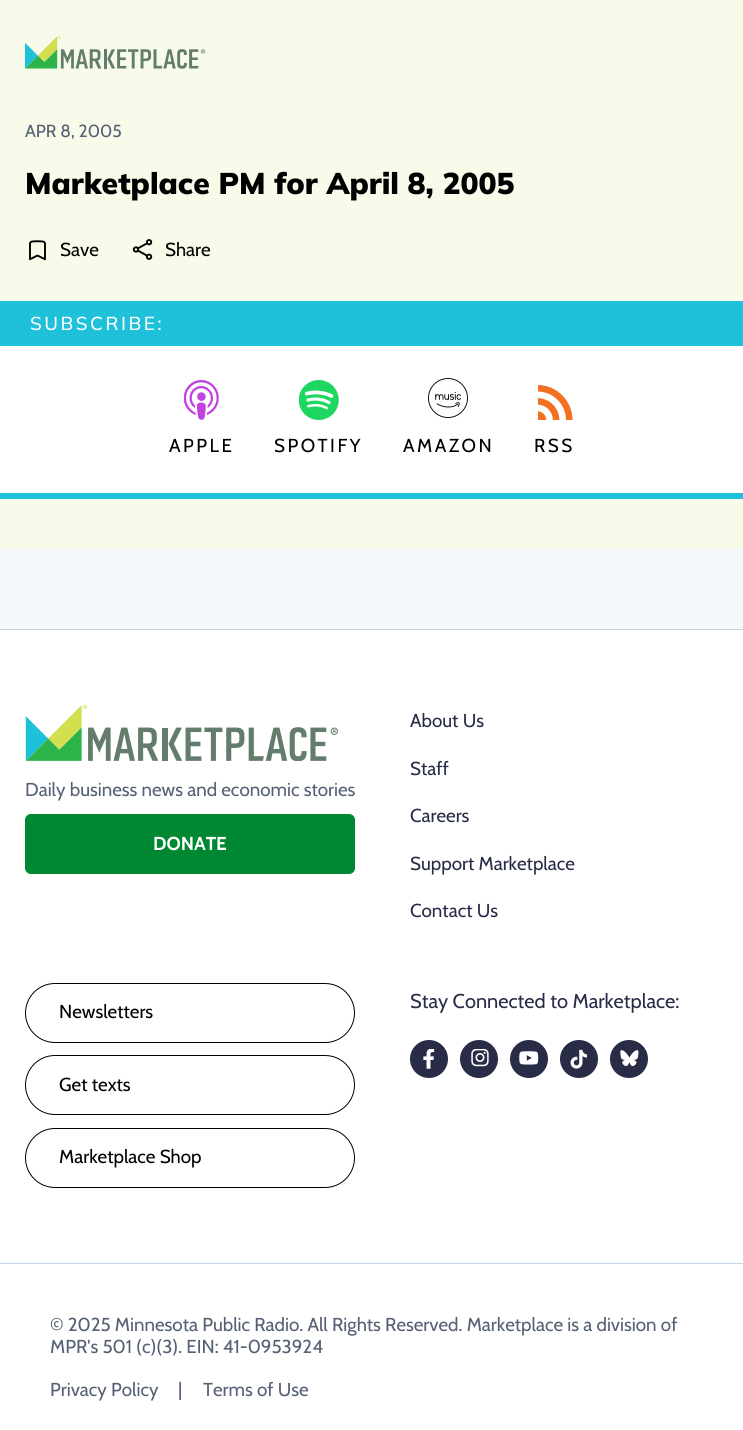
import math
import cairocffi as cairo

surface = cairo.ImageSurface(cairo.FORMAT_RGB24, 743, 1430)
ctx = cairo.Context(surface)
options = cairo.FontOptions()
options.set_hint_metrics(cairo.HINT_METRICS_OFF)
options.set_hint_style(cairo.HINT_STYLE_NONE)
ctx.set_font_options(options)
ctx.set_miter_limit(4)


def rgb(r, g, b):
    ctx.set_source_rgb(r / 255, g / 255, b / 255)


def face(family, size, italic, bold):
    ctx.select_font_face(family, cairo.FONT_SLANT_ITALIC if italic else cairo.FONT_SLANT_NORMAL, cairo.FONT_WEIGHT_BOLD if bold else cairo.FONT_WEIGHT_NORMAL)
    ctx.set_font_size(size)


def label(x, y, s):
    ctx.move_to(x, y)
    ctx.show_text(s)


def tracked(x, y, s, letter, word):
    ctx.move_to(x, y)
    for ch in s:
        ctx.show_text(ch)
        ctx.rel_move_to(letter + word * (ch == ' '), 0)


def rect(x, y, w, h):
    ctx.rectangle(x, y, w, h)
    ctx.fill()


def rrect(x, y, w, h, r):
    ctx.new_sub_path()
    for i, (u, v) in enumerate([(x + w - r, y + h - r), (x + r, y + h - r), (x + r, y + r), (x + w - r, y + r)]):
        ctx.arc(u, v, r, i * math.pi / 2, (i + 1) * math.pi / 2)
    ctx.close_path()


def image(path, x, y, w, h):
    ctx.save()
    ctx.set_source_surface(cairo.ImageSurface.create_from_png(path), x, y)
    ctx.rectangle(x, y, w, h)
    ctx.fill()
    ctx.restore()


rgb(246, 249, 252)
ctx.paint()
rgb(249, 251, 234)
rect(0, 0, 743, 549)
image('image0.png', 25, 36, 180, 33)
face('Cabin', 17.5, 0, 0)
rgb(85, 96, 117)
label(25, 137, 'APR 8, 2005')
face('Mulish Black', 30, 0, 0)
rgb(0, 0, 0)
label(25, 194, 'Marketplace PM for April 8, 2005')
image('image1.png', 29, 240, 17, 21)
face('Cabin', 18.75, 0, 0)
label(60, 256, 'Save')
image('image2.png', 132, 239, 21, 21)
label(165, 256, 'Share')
rgb(31, 192, 218)
rect(0, 301, 743, 45)
face('Mulish Medium', 18.75, 0, 0)
rgb(255, 255, 255)
tracked(30, 330, 'SUBSCRIBE:', 2.5, 0)
rect(0, 346, 743, 147)
rgb(31, 192, 218)
rect(0, 493, 743, 6)
image('image3.png', 184, 380, 35, 40)
face('Cabin', 18.75, 0, 0)
rgb(0, 0, 0)
tracked(169, 452, 'APPLE', 2.5, 0)
image('image4.png', 299, 380, 40, 40)
tracked(274, 452, 'SPOTIFY', 2.5, 0)
image('image5.png', 428, 378, 40, 40)
tracked(403, 452, 'AMAZON', 2.5, 0)
image('image6.png', 538, 385, 35, 35)
tracked(534, 452, 'RSS', 2.5, 0)
rgb(255, 255, 255)
rect(0, 630, 743, 800)
rgb(196, 212, 231)
rect(0, 629, 743, 1)
image('image7.png', 25, 705, 313, 56)
rgb(85, 96, 117)
label(25, 796, 'Daily business news and economic stories')
rgb(0, 135, 50)
rrect(25.5, 814.5, 329, 59, 5.5)
ctx.fill_preserve()
ctx.set_line_width(1)
ctx.stroke()
face('Cabin', 18.75, 0, 1)
rgb(255, 255, 255)
label(153, 850, 'DONATE')
face('Cabin', 18.75, 0, 0)
rgb(40, 44, 71)
label(410, 727, 'About Us')
label(410, 775, 'Staff')
label(410, 822, 'Careers')
label(410, 870, 'Support Marketplace')
label(410, 917, 'Contact Us')
rrect(25.5, 983.5, 329, 59, 29.5)
rgb(0, 0, 0)
ctx.stroke()
label(59, 1018, 'Newsletters')
rrect(25.5, 1055.5, 329, 59, 29.5)
ctx.stroke()
label(59, 1091, 'Get texts')
rrect(25.5, 1128.5, 329, 59, 29.5)
ctx.stroke()
label(59, 1163, 'Marketplace Shop')
face('Cabin', 20, 0, 0)
rgb(40, 44, 71)
label(410, 1008, 'Stay Connected to Marketplace:')
ctx.new_path()
ctx.arc(429, 1059, 19, 0, 2 * math.pi)
ctx.fill()
image('image8.png', 423, 1049, 12, 20)
ctx.arc(479, 1059, 19, 0, 2 * math.pi)
ctx.fill()
image('image9.png', 471, 1049, 18, 18)
ctx.arc(529, 1059, 19, 0, 2 * math.pi)
ctx.fill()
image('image10.png', 519, 1051, 20, 14)
ctx.arc(579, 1059, 19, 0, 2 * math.pi)
ctx.fill()
image('image11.png', 570, 1049, 17, 20)
ctx.arc(629, 1059, 19, 0, 2 * math.pi)
ctx.fill()
image('image12.png', 620, 1050, 19, 17)
rgb(196, 212, 231)
rect(0, 1263, 743, 1)
face('Cabin', 18.75, 0, 0)
rgb(85, 96, 117)
label(50, 1331, '© 2025 Minnesota Public Radio. All Rights Reserved. Marketplace is a division of')
label(50, 1353, 'MPR\'s 501 (c)(3). EIN: 41-0953924')
label(50, 1396, 'Privacy Policy')
label(178, 1396, '|')
label(203, 1396, 'Terms of Use')
surface.write_to_png('render.png')
